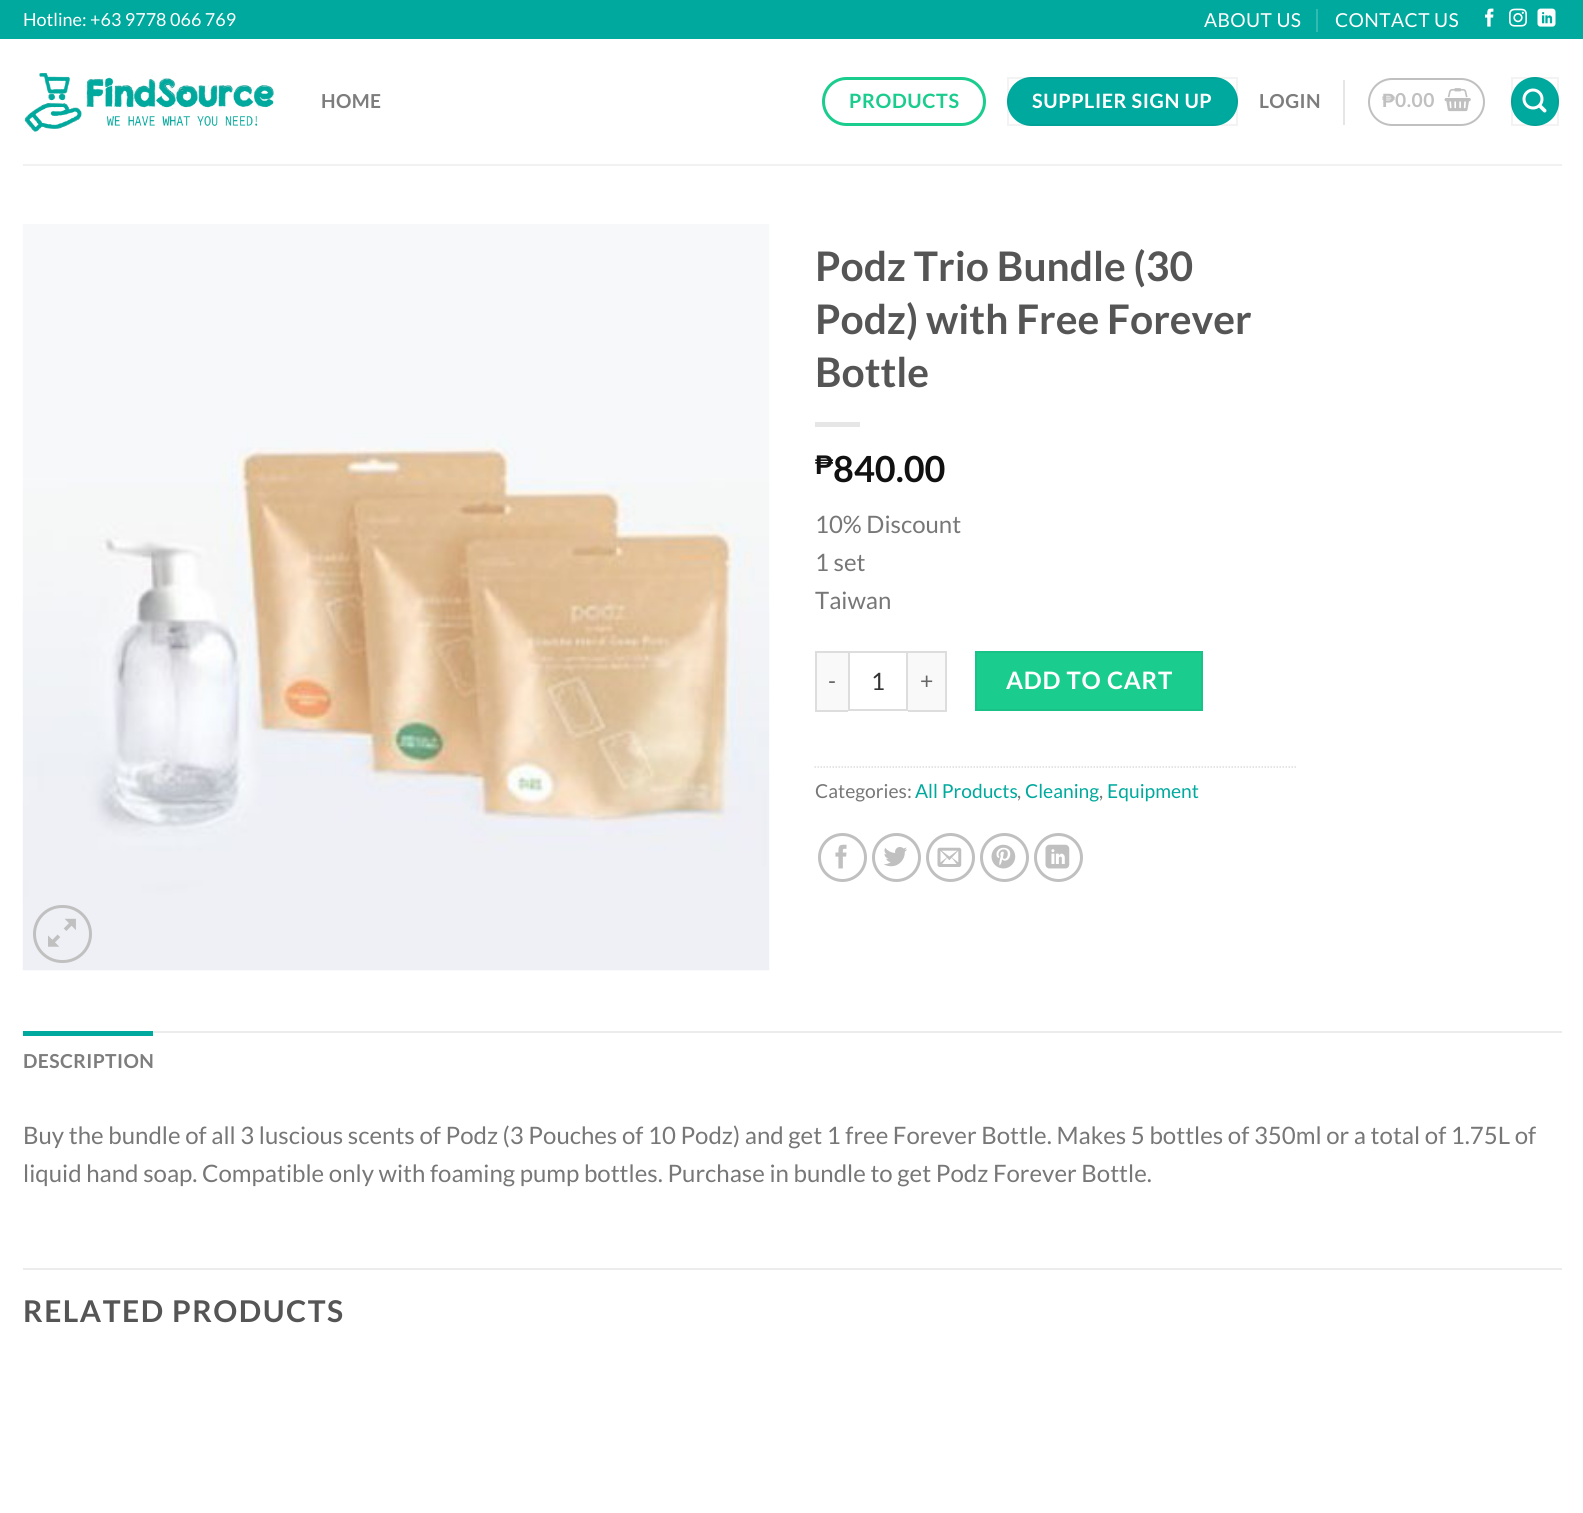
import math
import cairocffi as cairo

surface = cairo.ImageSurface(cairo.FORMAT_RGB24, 1583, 1513)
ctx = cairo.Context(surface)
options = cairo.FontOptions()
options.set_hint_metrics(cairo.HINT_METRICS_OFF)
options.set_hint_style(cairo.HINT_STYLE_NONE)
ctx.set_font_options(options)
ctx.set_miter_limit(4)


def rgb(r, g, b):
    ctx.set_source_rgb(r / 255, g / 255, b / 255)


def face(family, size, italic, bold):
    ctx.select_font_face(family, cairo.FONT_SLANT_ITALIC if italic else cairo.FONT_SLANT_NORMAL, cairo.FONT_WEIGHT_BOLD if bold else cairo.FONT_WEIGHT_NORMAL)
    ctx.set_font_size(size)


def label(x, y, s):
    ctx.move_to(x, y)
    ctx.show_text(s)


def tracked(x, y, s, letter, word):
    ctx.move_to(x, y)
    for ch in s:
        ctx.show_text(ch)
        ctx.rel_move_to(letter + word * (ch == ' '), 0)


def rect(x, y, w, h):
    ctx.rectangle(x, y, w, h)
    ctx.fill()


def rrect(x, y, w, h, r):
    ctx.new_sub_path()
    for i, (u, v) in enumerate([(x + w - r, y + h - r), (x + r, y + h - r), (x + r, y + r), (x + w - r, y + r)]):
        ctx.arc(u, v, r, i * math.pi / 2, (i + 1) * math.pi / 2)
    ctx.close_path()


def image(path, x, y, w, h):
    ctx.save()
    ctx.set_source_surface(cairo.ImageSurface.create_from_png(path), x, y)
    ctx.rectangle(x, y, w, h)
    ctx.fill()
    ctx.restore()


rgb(255, 255, 255)
ctx.paint()
rgb(0, 169, 157)
rect(0, 0, 1583, 39)
face('Lato', 18, 0, 0)
rgb(255, 255, 255)
label(23, 26, 'Hotline: +63 9778 066 769')
face('Lato', 19.25, 0, 0)
tracked(1204, 27, 'ABOUT US', 0.4, 0)
rgb(51, 186, 177)
rect(1316, 9, 2, 23)
rgb(255, 255, 255)
tracked(1335, 27, 'CONTACT US', 0.4, 0)
image('image0.png', 1485, 8, 9, 19)
image('image1.png', 1509, 8, 18, 19)
image('image2.png', 1537, 8, 19, 19)
image('image3.png', 24, 73, 250, 59)
face('Lato', 19.25, 0, 1)
rgb(125, 125, 125)
tracked(321, 108, 'HOME', 0.4, 0)
rrect(823.5, 78.5, 161, 46, 23)
rgb(26, 204, 141)
ctx.set_line_width(3)
ctx.stroke()
face('Lato', 19.75, 0, 1)
tracked(849, 108, 'PRODUCTS', 0.6, 0)
rgb(0, 169, 157)
rrect(1007, 77, 231, 49, 24.5)
ctx.fill()
ctx.rectangle(1008, 78, 229, 47)
ctx.set_source_rgba(0, 0, 0, 0.05)
ctx.set_line_width(2)
ctx.stroke()
rgb(255, 255, 255)
tracked(1032, 108, 'SUPPLIER SIGN UP', 0.6, 0)
face('Lato', 19.25, 0, 1)
rgb(125, 125, 125)
tracked(1259, 108, 'LOGIN', 0.4, 0)
rgb(230, 230, 230)
rect(1343, 80, 2, 45)
rrect(1369, 79, 115, 46, 23)
rgb(192, 192, 192)
ctx.stroke()
face('Liberation Sans', 19.25, 0, 1)
tracked(1382, 107, '₱', 0.5, 0)
face('Lato', 19.25, 0, 1)
tracked(1395, 107, '0.00', 0.5, 0)
image('image4.png', 1444, 88, 27, 24)
rgb(0, 169, 157)
rrect(1511, 77, 48, 49, 24)
ctx.fill()
ctx.rectangle(1512, 78, 46, 47)
ctx.set_source_rgba(0, 0, 0, 0.05)
ctx.stroke()
image('image5.png', 1522, 88, 25, 25)
rgb(241, 241, 241)
rect(23, 164, 1539, 2)
image('image6.png', 22, 224, 748, 747)
rrect(34.5, 906.5, 56, 55, 27.5)
rgb(192, 192, 192)
ctx.set_line_width(3)
ctx.stroke()
image('image7.png', 48, 918, 28, 29)
face('Lato', 40.75, 0, 1)
rgb(85, 85, 85)
label(815, 281, 'Podz Trio Bundle (30')
label(815, 334, 'Podz) with Free Forever')
label(815, 387, 'Bottle')
rgb(230, 230, 230)
rect(815, 422, 45, 5)
face('Liberation Sans', 27, 0, 1)
rgb(17, 17, 17)
label(815, 474, '₱')
face('Lato', 36, 0, 1)
label(833, 482, '840.00')
face('Lato', 24, 0, 0)
rgb(119, 119, 119)
label(815, 533, '10% Discount')
label(815, 571, '1 set')
label(815, 609, 'Taiwan')
rgb(249, 249, 249)
rect(817, 653, 31, 57)
rgb(221, 221, 221)
rect(815, 651, 33, 2)
rect(815, 710, 33, 2)
rect(815, 651, 2, 60)
face('Lato', 23, 0, 0)
rgb(102, 102, 102)
tracked(828, 689, '-', 1, 0)
ctx.rectangle(849, 652, 58, 58)
rgb(221, 221, 221)
ctx.set_line_width(2)
ctx.stroke()
face('Lato', 24, 0, 0)
rgb(51, 51, 51)
label(871, 690, '1')
rgb(249, 249, 249)
rect(908, 653, 37, 57)
rgb(221, 221, 221)
rect(908, 651, 39, 2)
rect(945, 651, 2, 60)
rect(908, 710, 39, 2)
face('Lato', 23, 0, 0)
rgb(102, 102, 102)
tracked(920, 689, '+', 1, 0)
rgb(26, 204, 141)
ctx.rectangle(976, 652, 226, 58)
ctx.fill_preserve()
rgb(25, 194, 134)
ctx.stroke()
face('Lato', 24, 0, 1)
rgb(255, 255, 255)
tracked(1006, 689, 'ADD TO CART', 0.75, 0)
ctx.new_path()
ctx.move_to(814.5, 767)
ctx.line_to(1297.5, 767)
rgb(221, 221, 221)
ctx.set_line_width(1.5)
ctx.set_dash([1.5, 1.5])
ctx.stroke()
face('Lato', 19.25, 0, 0)
rgb(119, 119, 119)
label(815, 798, 'Categories:')
rgb(0, 169, 157)
label(915, 798, 'All Products')
rgb(119, 119, 119)
label(1017, 798, ',')
rgb(0, 169, 157)
label(1025, 798, 'Cleaning')
rgb(119, 119, 119)
label(1099, 798, ',')
rgb(0, 169, 157)
label(1107, 798, 'Equipment')
ctx.new_path()
ctx.arc(842.5, 857.5, 23, 0, 2 * math.pi)
rgb(192, 192, 192)
ctx.set_line_width(3)
ctx.set_dash([])
ctx.stroke()
image('image8.png', 835, 844, 12, 25)
ctx.arc(896.5, 857.5, 23, 0, 2 * math.pi)
ctx.stroke()
image('image9.png', 884, 847, 23, 20)
ctx.arc(950.5, 857.5, 23, 0, 2 * math.pi)
ctx.stroke()
image('image10.png', 937, 847, 25, 20)
ctx.arc(1004.5, 857.5, 23, 0, 2 * math.pi)
ctx.stroke()
image('image11.png', 991, 844, 25, 25)
ctx.arc(1058.5, 857.5, 23, 0, 2 * math.pi)
ctx.stroke()
image('image12.png', 1045, 844, 25, 25)
rgb(236, 236, 236)
rect(153, 1031, 1409, 2)
rgb(0, 169, 157)
rect(23, 1031, 130, 5)
face('Lato', 19.25, 0, 1)
rgb(125, 125, 125)
tracked(23, 1068, 'DESCRIPTION', 0.4, 0)
face('Lato', 24, 0, 0)
rgb(119, 119, 119)
label(23, 1144, 'Buy the bundle of all 3 luscious scents of Podz (3 Pouches of 10 Podz) and get 1 free Forever Bottle. Makes 5 bottles of 350ml or a total of 1.75L of')
label(23, 1182, 'liquid hand soap. Compatible only with foaming pump bottles. Purchase in bundle to get Podz Forever Bottle.')
rgb(236, 236, 236)
rect(23, 1268, 1539, 2)
face('Lato', 30, 0, 1)
rgb(85, 85, 85)
tracked(23, 1322, 'RELATED PRODUCTS', 1.5, 0)
surface.write_to_png('render.png')
